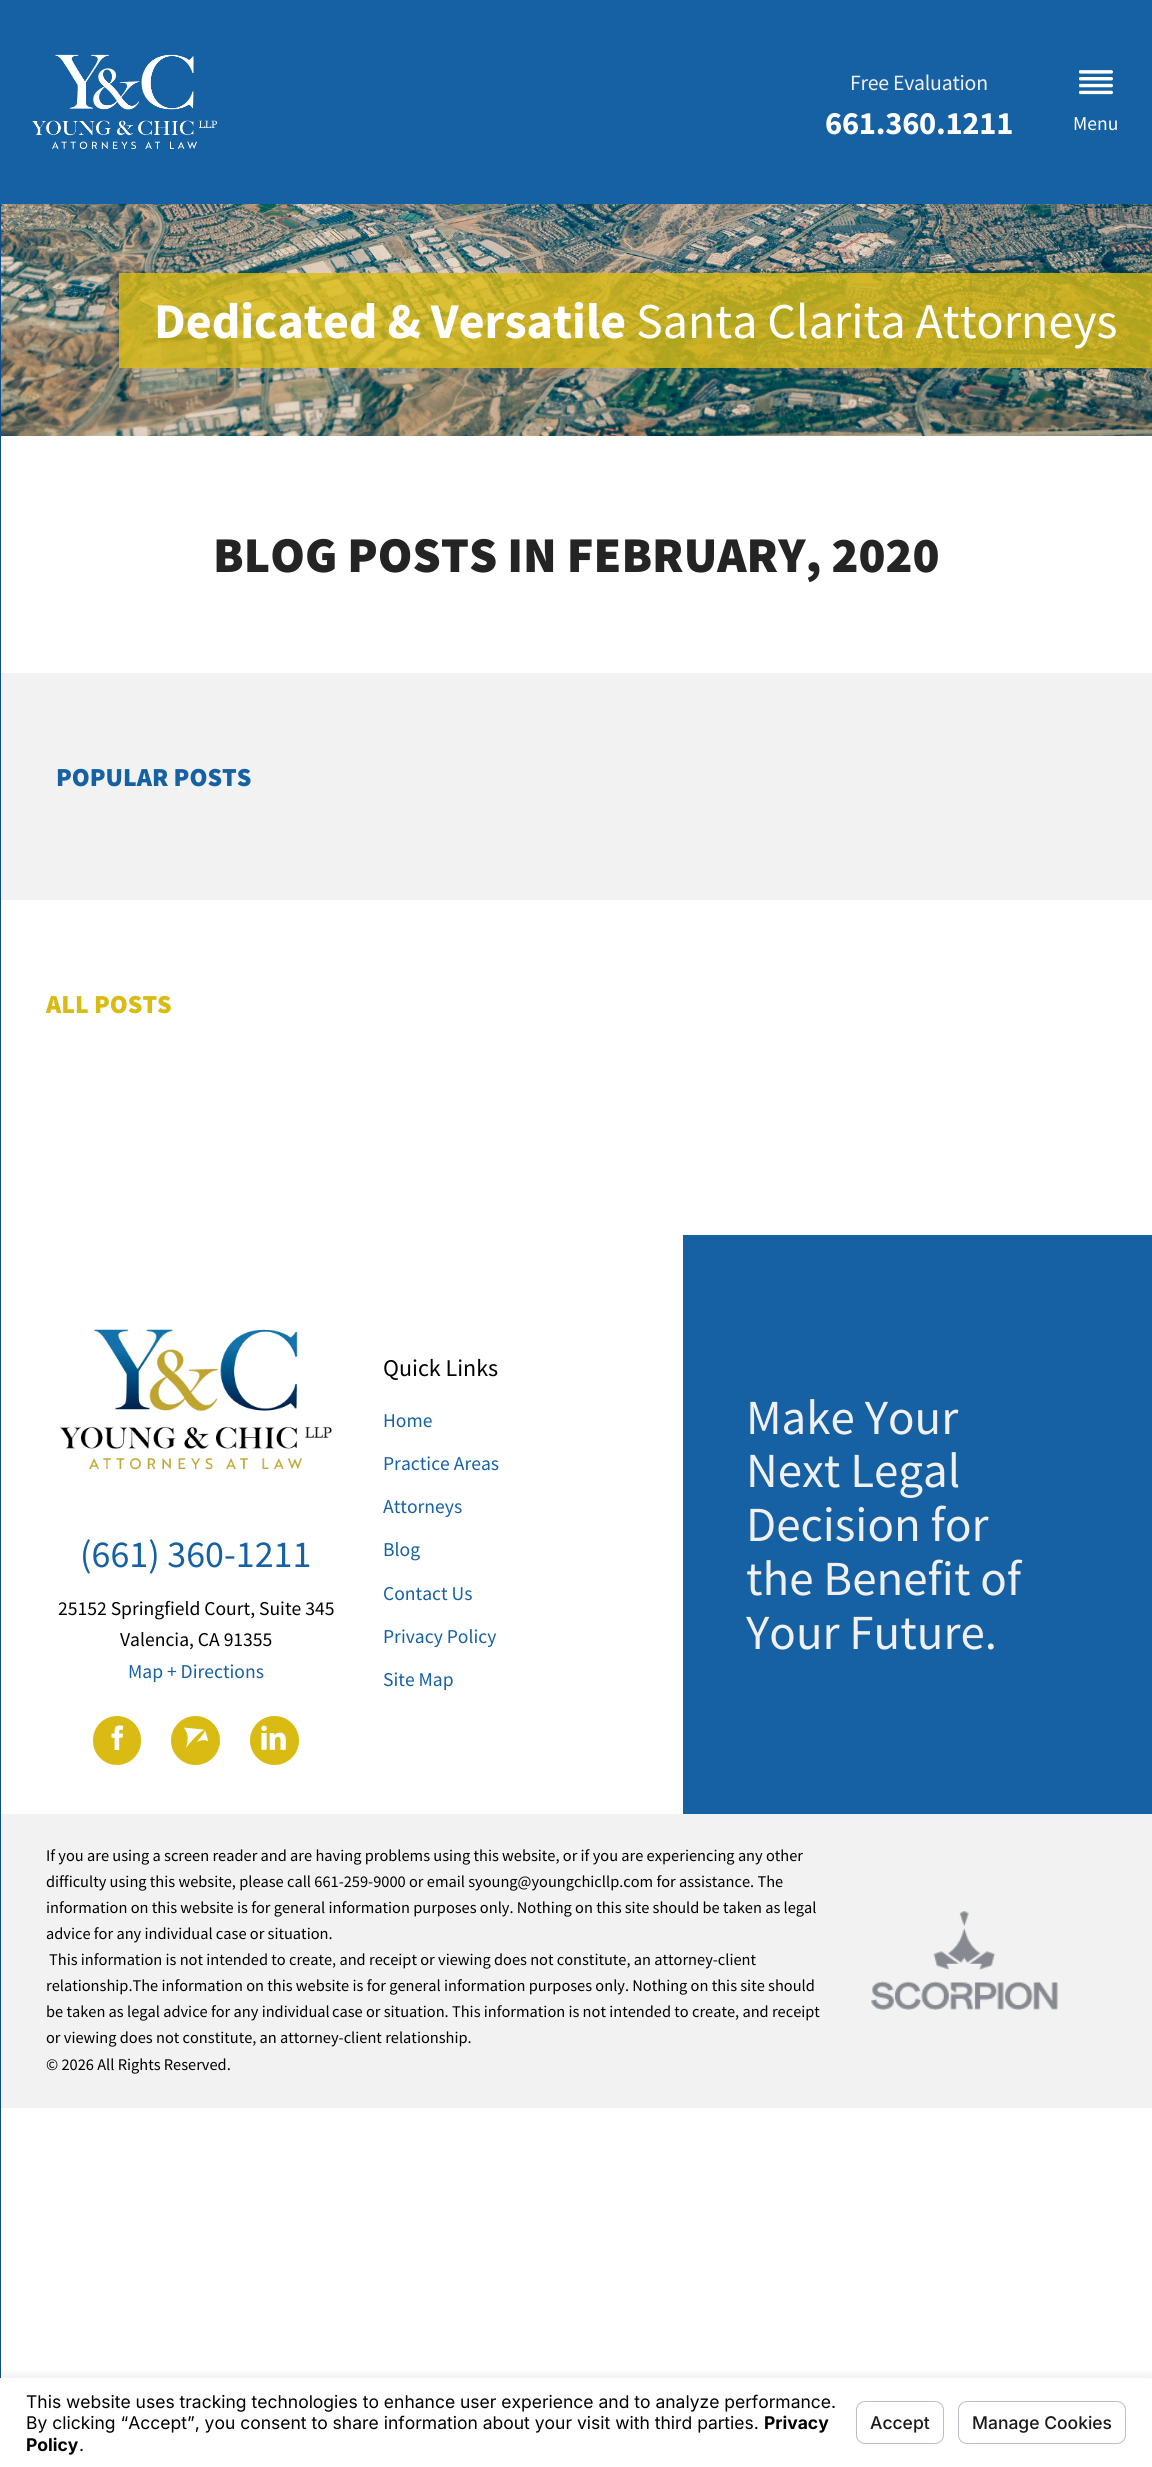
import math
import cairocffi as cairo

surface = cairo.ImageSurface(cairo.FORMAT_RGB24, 1152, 2467)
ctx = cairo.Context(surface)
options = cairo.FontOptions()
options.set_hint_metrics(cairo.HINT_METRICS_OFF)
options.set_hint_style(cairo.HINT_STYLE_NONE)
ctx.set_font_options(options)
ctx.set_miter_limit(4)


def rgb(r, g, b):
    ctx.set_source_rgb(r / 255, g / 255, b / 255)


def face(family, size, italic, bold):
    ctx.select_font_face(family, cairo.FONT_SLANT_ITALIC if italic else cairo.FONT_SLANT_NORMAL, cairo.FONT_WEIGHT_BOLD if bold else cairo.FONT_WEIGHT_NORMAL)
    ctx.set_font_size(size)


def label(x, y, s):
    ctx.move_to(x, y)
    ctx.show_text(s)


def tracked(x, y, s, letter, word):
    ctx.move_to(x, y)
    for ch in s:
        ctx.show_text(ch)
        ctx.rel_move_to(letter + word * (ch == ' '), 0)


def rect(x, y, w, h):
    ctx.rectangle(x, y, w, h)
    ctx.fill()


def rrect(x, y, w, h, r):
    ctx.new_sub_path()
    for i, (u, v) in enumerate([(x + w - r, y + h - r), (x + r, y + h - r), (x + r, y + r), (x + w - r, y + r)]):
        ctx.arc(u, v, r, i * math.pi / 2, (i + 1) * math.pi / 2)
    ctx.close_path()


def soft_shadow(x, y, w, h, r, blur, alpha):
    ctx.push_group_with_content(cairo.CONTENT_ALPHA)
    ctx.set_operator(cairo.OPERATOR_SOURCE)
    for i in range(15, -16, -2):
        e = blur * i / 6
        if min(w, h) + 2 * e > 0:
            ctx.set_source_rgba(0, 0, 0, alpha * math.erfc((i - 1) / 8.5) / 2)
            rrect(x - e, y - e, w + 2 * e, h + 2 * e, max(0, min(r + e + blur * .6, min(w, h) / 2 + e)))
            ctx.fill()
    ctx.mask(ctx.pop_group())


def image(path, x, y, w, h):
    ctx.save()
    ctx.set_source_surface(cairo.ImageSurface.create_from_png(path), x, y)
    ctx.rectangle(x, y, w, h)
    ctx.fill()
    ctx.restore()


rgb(255, 255, 255)
ctx.paint()
rgb(22, 96, 164)
rect(0, 0, 1152, 204)
image('image0.png', 32, 54, 185, 95)
face('Source Sans Pro', 21.75, 0, 0)
rgb(240, 240, 240)
tracked(850, 90, 'Free Evaluation', -0.25, 0)
face('Source Sans Pro', 32.5, 0, 1)
rgb(255, 255, 255)
tracked(825, 134, '661.360.1211', -0.25, 0)
image('image1.png', 1079, 70, 34, 25)
face('Source Sans Pro', 19.6, 0, 0)
label(1073, 130, 'Menu')
rgb(18, 77, 131)
rect(0, 204, 1, 2174)
image('image2.png', 1, 204, 1151, 232)
ctx.set_source_rgba(0.855, 0.733, 0.078, 0.8)
rect(119, 273, 1033, 95)
face('Source Sans Pro', 50, 0, 1)
rgb(255, 255, 255)
label(154, 338, 'Dedicated & Versatile')
face('Source Sans Pro', 50, 0, 0)
label(636, 338, 'Santa Clarita Attorneys')
face('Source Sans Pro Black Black', 50.1, 0, 0)
rgb(36, 36, 36)
label(213, 572, 'BLOG POSTS IN FEBRUARY, 2020')
rgb(242, 242, 242)
rect(1, 673, 1151, 227)
face('Source Sans Pro Black Black', 26, 0, 0)
rgb(22, 96, 164)
label(56, 786, 'POPULAR POSTS')
rgb(218, 187, 20)
label(46, 1013, 'ALL POSTS')
image('image3.png', 60, 1329, 272, 141)
face('Source Sans Pro', 38, 0, 0)
rgb(22, 96, 164)
label(80, 1567, '(661) 360-1211')
face('Source Sans Pro', 19.6, 0, 0)
rgb(0, 0, 0)
label(58, 1615, '25152 Springfield Court, Suite 345')
label(120, 1646, 'Valencia, CA 91355')
rgb(22, 96, 164)
label(128, 1678, 'Map + Directions')
rgb(218, 187, 20)
rrect(93, 1716, 48, 49, 24)
ctx.fill()
image('image4.png', 111, 1725, 12, 25)
ctx.arc(195.5, 1740.5, 24.5, 0, 2 * math.pi)
ctx.fill()
image('image5.png', 183, 1727, 26, 21)
ctx.arc(274.5, 1740.5, 24.5, 0, 2 * math.pi)
ctx.fill()
image('image6.png', 261, 1725, 25, 25)
face('Source Sans Pro', 24, 0, 0)
rgb(0, 0, 0)
label(383, 1376, 'Quick Links')
face('Source Sans Pro', 19.6, 0, 0)
rgb(22, 96, 164)
label(383, 1427, 'Home')
label(383, 1470, 'Practice Areas')
label(383, 1513, 'Attorneys')
label(383, 1556, 'Blog')
label(383, 1600, 'Contact Us')
label(383, 1643, 'Privacy Policy')
label(383, 1686, 'Site Map')
rect(683, 1235, 469, 579)
face('Source Sans Pro', 49, 0, 0)
rgb(240, 240, 240)
label(746, 1434, 'Make Your')
label(746, 1487, 'Next Legal')
label(746, 1541, 'Decision for')
label(746, 1595, 'the Benefit of')
label(746, 1649, 'Your Future.')
rgb(242, 242, 242)
rect(1, 1814, 1151, 294)
face('Source Sans Pro', 16.35, 0, 0)
rgb(0, 0, 0)
label(46, 1861, 'If you are using a screen reader and are having problems using this website, or if you are experiencing any other')
label(46, 1887, 'difficulty using this website, please call 661-259-9000 or email syoung@youngchicllp.com for assistance. The')
label(46, 1913, 'information on this website is for general information purposes only. Nothing on this site should be taken as legal')
label(46, 1939, 'advice for any individual case or situation.')
label(49, 1965, 'This information is not intended to create, and receipt or viewing does not constitute, an attorney-client')
label(46, 1991, 'relationship.The information on this website is for general information purposes only. Nothing on this site should')
label(46, 2017, 'be taken as legal advice for any individual')
label(332, 2017, 'case or situation. This information is not intended to create, and receipt')
label(46, 2043, 'or viewing does not constitute, an attorney-client relationship.')
label(46, 2070, '© 2026 All Rights Reserved.')
image('image7.png', 871, 1911, 187, 99)
rgb(0, 0, 0)
soft_shadow(0, 2373, 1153, 90, 0, 2, 0.05)
rgb(255, 255, 255)
rect(0, 2378, 1152, 87)
face('Inter', 17.5, 0, 0)
rgb(0, 0, 0)
label(26, 2408, 'This website uses tracking technologies to enhance user experience and to analyze performance.')
label(26, 2429, 'By clicking “Accept”, you consent to share information about your visit with third parties.')
face('Inter', 17.5, 0, 1)
label(764, 2429, 'Privacy')
label(26, 2451, 'Policy')
face('Inter', 17.5, 0, 0)
label(79, 2451, '.')
rrect(856.5, 2401.5, 87, 42, 8.5)
rgb(188, 190, 199)
ctx.set_line_width(1)
ctx.stroke()
face('Inter Medium', 17.5, 0, 0)
rgb(25, 25, 25)
label(870, 2429, 'Accept')
rrect(958.5, 2401.5, 167, 42, 8.5)
rgb(188, 190, 199)
ctx.stroke()
rgb(25, 25, 25)
label(972, 2429, 'Manage Cookies')
surface.write_to_png('render.png')
